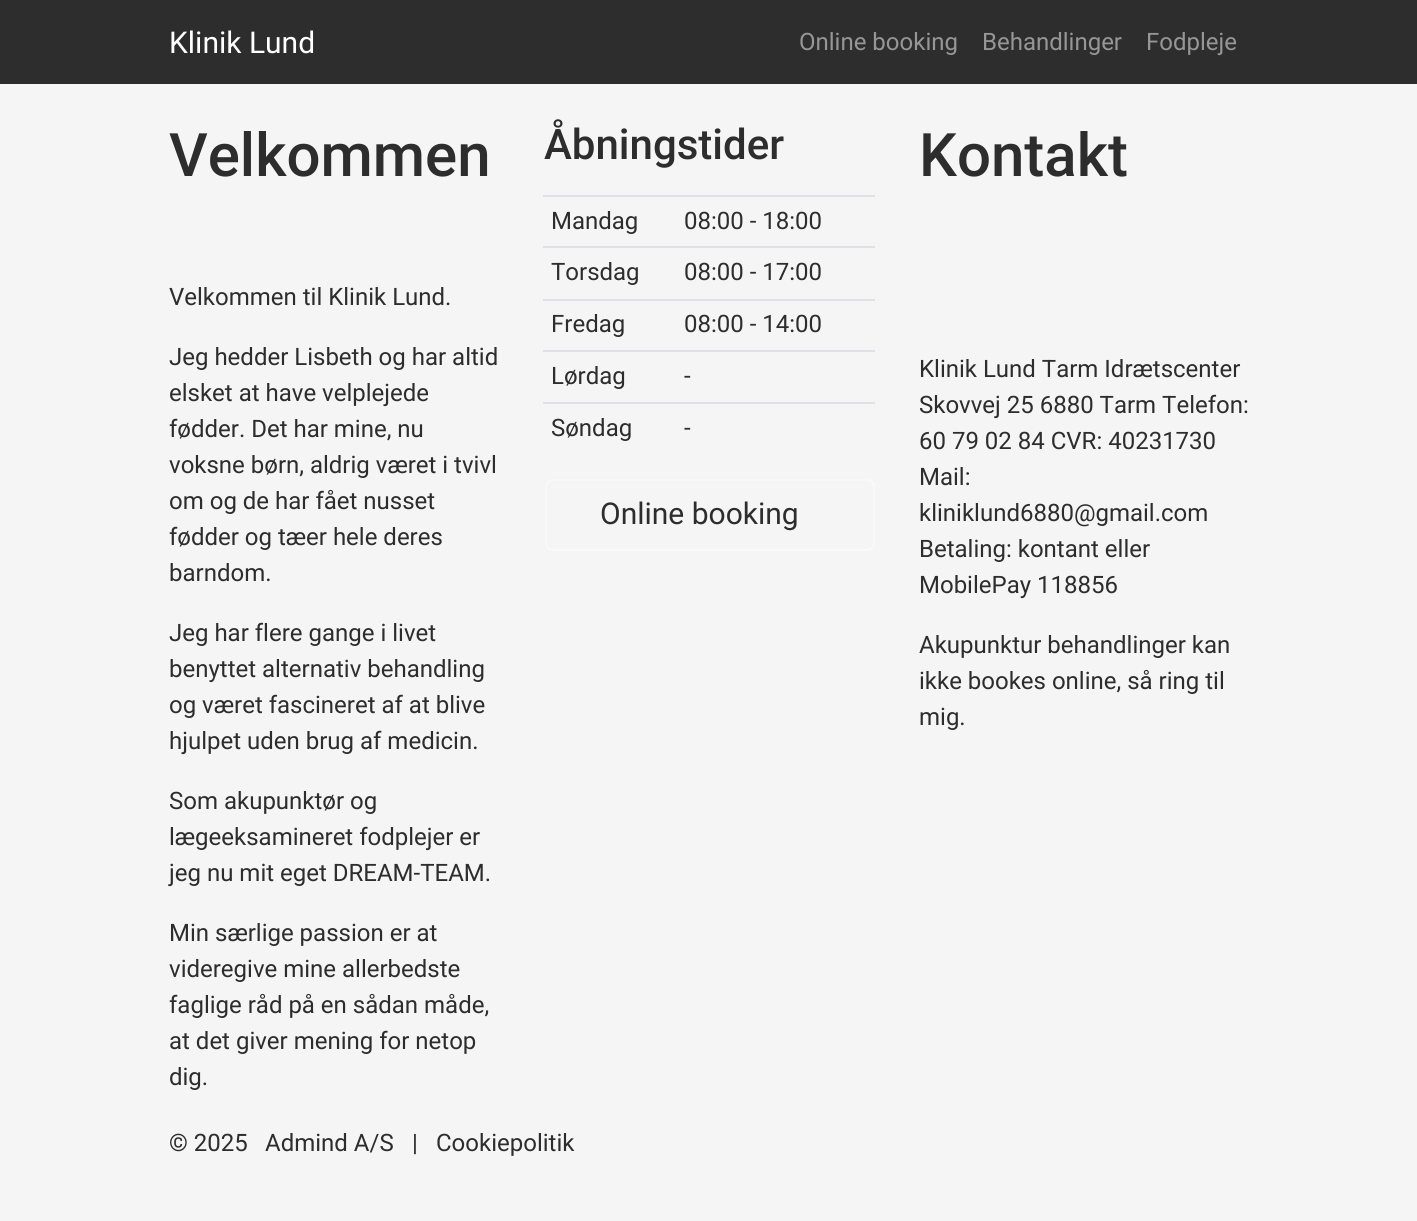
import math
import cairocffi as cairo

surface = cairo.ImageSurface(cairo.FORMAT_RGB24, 1417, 1221)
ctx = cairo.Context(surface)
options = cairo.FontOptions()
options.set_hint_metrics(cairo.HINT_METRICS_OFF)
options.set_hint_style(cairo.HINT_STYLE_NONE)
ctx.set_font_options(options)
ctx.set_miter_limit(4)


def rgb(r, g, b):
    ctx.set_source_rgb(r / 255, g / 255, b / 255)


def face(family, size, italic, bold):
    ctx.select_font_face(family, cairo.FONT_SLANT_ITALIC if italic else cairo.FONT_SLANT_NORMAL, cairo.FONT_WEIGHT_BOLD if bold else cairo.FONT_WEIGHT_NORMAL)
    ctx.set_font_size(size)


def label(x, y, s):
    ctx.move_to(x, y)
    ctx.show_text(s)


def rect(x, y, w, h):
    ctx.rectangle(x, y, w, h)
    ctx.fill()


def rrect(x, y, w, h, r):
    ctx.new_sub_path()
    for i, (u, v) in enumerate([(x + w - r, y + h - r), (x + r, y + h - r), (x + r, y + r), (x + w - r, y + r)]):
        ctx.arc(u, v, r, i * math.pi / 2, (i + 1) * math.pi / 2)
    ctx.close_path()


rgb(245, 245, 245)
ctx.paint()
rgb(45, 45, 45)
rect(0, 0, 1417, 84)
face('Roboto', 30, 0, 0)
rgb(255, 255, 255)
label(169, 53, 'Klinik Lund')
face('Roboto', 24, 0, 0)
rgb(150, 150, 150)
label(799, 50, 'Online booking')
label(982, 50, 'Behandlinger')
label(1146, 50, 'Fodpleje')
face('Roboto Medium', 60, 0, 0)
rgb(45, 45, 45)
label(169, 176, 'Velkommen')
face('Roboto', 24, 0, 0)
label(169, 305, 'Velkommen til Klinik Lund.')
label(169, 365, 'Jeg hedder Lisbeth og har altid')
label(169, 401, 'elsket at have velplejede')
label(169, 437, 'fødder. Det har mine, nu')
label(169, 473, 'voksne børn, aldrig været i tvivl')
label(169, 509, 'om og de har fået nusset')
label(169, 545, 'fødder og tæer hele deres')
label(169, 581, 'barndom.')
label(169, 641, 'Jeg har flere gange i livet')
label(169, 677, 'benyttet alternativ behandling')
label(169, 713, 'og været fascineret af at blive')
label(169, 749, 'hjulpet uden brug af medicin.')
label(169, 809, 'Som akupunktør og')
label(169, 845, 'lægeeksamineret fodplejer er')
label(169, 881, 'jeg nu mit eget DREAM-TEAM.')
label(169, 941, 'Min særlige passion er at')
label(169, 977, 'videregive mine allerbedste')
label(169, 1013, 'faglige råd på en sådan måde,')
label(169, 1049, 'at det giver mening for netop')
label(169, 1085, 'dig.')
face('Roboto Medium', 42, 0, 0)
label(544, 159, 'Åbningstider')
face('Roboto', 24, 0, 0)
label(551, 229, 'Mandag')
rgb(222, 226, 230)
rect(543, 195, 332, 2)
rgb(45, 45, 45)
label(684, 229, '08:00 - 18:00')
label(551, 280, 'Torsdag')
rgb(222, 226, 230)
rect(543, 246, 332, 2)
rgb(45, 45, 45)
label(684, 280, '08:00 - 17:00')
label(551, 332, 'Fredag')
rgb(222, 226, 230)
rect(543, 299, 332, 2)
rgb(45, 45, 45)
label(684, 332, '08:00 - 14:00')
label(551, 384, 'Lørdag')
rgb(222, 226, 230)
rect(543, 350, 332, 2)
rgb(45, 45, 45)
label(684, 384, '-')
label(551, 436, 'Søndag')
rgb(222, 226, 230)
rect(543, 402, 332, 2)
rgb(45, 45, 45)
label(684, 436, '-')
rrect(546, 480, 328, 70, 7)
rgb(248, 249, 250)
ctx.stroke()
face('Roboto', 30, 0, 0)
rgb(45, 45, 45)
label(600, 524, 'Online booking')
face('Roboto Medium', 60, 0, 0)
label(919, 176, 'Kontakt')
face('Roboto', 24, 0, 0)
label(919, 377, 'Klinik Lund Tarm Idrætscenter')
label(919, 413, 'Skovvej 25 6880 Tarm Telefon:')
label(919, 449, '60 79 02 84 CVR: 40231730')
label(919, 485, 'Mail:')
label(919, 521, 'kliniklund6880@gmail.com')
label(919, 557, 'Betaling: kontant eller')
label(919, 593, 'MobilePay 118856')
label(919, 653, 'Akupunktur behandlinger kan')
label(919, 689, 'ikke bookes online, så ring til')
label(919, 725, 'mig.')
label(169, 1151, '© 2025')
label(265, 1151, 'Admind A/S')
label(412, 1151, '|')
label(436, 1151, 'Cookiepolitik')
surface.write_to_png('render.png')
